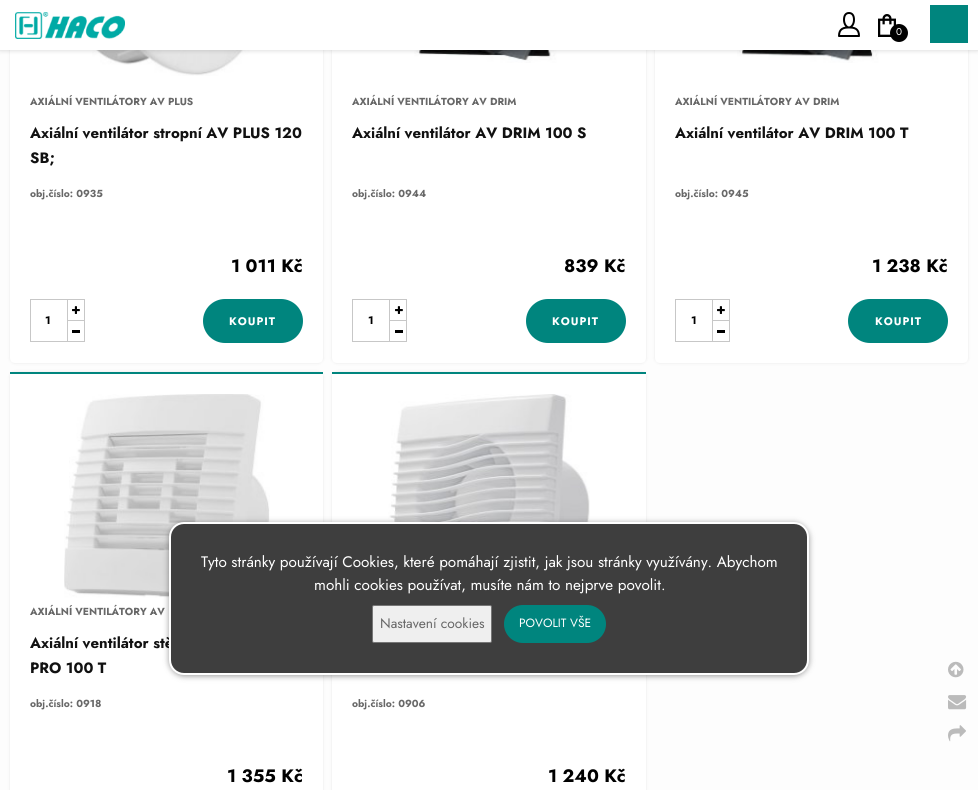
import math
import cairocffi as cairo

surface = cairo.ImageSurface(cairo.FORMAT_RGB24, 978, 790)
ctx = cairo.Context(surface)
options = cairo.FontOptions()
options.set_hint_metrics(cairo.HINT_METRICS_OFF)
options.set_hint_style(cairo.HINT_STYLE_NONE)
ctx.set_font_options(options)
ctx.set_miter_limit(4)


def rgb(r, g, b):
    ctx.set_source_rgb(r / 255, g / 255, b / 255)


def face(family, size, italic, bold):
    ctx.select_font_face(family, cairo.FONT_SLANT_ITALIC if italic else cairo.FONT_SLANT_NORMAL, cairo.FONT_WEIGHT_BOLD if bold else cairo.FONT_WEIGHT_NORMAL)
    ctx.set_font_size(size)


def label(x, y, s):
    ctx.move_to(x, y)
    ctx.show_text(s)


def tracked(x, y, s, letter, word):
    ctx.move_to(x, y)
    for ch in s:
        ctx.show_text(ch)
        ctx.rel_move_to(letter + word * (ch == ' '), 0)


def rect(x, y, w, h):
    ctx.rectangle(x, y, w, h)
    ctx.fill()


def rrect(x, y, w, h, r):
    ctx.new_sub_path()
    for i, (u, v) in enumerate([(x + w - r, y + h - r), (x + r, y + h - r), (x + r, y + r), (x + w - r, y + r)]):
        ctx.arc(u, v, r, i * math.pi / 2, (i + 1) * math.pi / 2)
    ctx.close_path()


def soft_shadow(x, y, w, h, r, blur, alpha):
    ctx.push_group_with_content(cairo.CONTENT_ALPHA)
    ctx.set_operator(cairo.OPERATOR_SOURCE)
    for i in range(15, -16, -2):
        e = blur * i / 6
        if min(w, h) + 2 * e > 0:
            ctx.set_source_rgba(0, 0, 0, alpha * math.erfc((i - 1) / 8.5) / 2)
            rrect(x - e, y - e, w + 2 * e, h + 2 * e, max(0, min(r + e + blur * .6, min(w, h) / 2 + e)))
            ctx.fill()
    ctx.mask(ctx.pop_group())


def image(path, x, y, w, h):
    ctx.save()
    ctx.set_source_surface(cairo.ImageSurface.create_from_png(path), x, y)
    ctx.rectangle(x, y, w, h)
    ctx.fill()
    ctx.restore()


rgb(253, 253, 253)
ctx.paint()
rgb(0, 0, 0)
soft_shadow(10, -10, 313, 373, 5, 1.5, 0.09)
rgb(255, 255, 255)
ctx.new_path()
ctx.move_to(10, -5)
ctx.line_to(323, -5)
ctx.line_to(323, 358)
ctx.curve_to(323, 361, 321, 363, 318, 363)
ctx.line_to(15, 363)
ctx.curve_to(12, 363, 10, 361, 10, 358)
ctx.close_path()
ctx.fill()
image('image3.png', 73, 50, 187, 26)
rgb(0, 0, 0)
soft_shadow(332, -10, 314, 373, 5, 1.5, 0.09)
rgb(255, 255, 255)
ctx.new_path()
ctx.move_to(332, -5)
ctx.line_to(646, -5)
ctx.line_to(646, 358)
ctx.curve_to(646, 361, 644, 363, 641, 363)
ctx.line_to(337, 363)
ctx.curve_to(334, 363, 332, 361, 332, 358)
ctx.close_path()
ctx.fill()
image('image5.png', 407, 50, 172, 13)
rgb(0, 0, 0)
soft_shadow(655, -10, 313, 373, 5, 1.5, 0.09)
rgb(255, 255, 255)
ctx.new_path()
ctx.move_to(655, -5)
ctx.line_to(968, -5)
ctx.line_to(968, 358)
ctx.curve_to(968, 361, 966, 363, 963, 363)
ctx.line_to(660, 363)
ctx.curve_to(657, 363, 655, 361, 655, 358)
ctx.close_path()
ctx.fill()
image('image6.png', 730, 50, 168, 13)
rgb(0, 0, 0)
soft_shadow(0, 0, 978, 50, 0, 2.5, 0.18)
rgb(255, 255, 255)
rect(0, 0, 978, 50)
image('image0.png', 15, 12, 110, 27)
image('image1.png', 838, 12, 22, 25)
image('image2.png', 878, 14, 18, 23)
rgb(0, 0, 0)
ctx.arc(899, 33, 9, 0, 2 * math.pi)
ctx.fill()
face('Jost', 10, 0, 0)
rgb(255, 255, 255)
label(896, 35, '0')
rgb(0, 133, 126)
rect(930, 5, 38, 38)
face('Jost', 10.25, 0, 1)
rgb(104, 104, 104)
label(30, 105, 'AXIÁLNÍ VENTILÁTORY AV PLUS')
face('Jost', 15, 0, 1)
rgb(17, 17, 17)
label(30, 138, 'Axiální ventilátor stropní AV PLUS 120')
label(30, 163, 'SB;')
face('Jost', 10.25, 0, 1)
rgb(104, 104, 104)
label(30, 197, 'obj.číslo: 0935')
face('Jost', 18, 0, 1)
rgb(0, 0, 0)
label(231, 272, '1 011 Kč')
ctx.rectangle(30.5, 299.5, 37, 42)
rgb(199, 199, 199)
ctx.set_line_width(1)
ctx.stroke()
face('Jost', 11, 0, 1)
rgb(0, 0, 0)
tracked(45, 324, '1', 1, 0)
ctx.rectangle(67.5, 299.5, 17, 21)
rgb(199, 199, 199)
ctx.stroke()
image('image4.png', 72, 306, 8, 8)
ctx.rectangle(67.5, 320.5, 17, 21)
ctx.stroke()
rgb(0, 0, 0)
rect(72, 330, 8, 3)
rgb(0, 133, 126)
rrect(203, 299, 100, 44, 22)
ctx.fill()
rgb(255, 255, 255)
tracked(229, 325, 'KOUPIT', 1, 0)
face('Jost', 10.25, 0, 1)
rgb(104, 104, 104)
label(352, 105, 'AXIÁLNÍ VENTILÁTORY AV DRIM')
face('Jost', 15, 0, 1)
rgb(17, 17, 17)
label(352, 138, 'Axiální ventilátor AV DRIM 100 S')
face('Jost', 10.25, 0, 1)
rgb(104, 104, 104)
label(352, 197, 'obj.číslo: 0944')
face('Jost', 18, 0, 1)
rgb(0, 0, 0)
label(564, 272, '839 Kč')
ctx.rectangle(352.5, 299.5, 37, 42)
rgb(199, 199, 199)
ctx.stroke()
face('Jost', 11, 0, 1)
rgb(0, 0, 0)
tracked(368, 324, '1', 1, 0)
ctx.rectangle(389.5, 299.5, 17, 21)
rgb(199, 199, 199)
ctx.stroke()
image('image4.png', 395, 306, 8, 8)
ctx.rectangle(389.5, 320.5, 17, 21)
ctx.stroke()
rgb(0, 0, 0)
rect(395, 330, 8, 3)
rgb(0, 133, 126)
rrect(526, 299, 100, 44, 22)
ctx.fill()
rgb(255, 255, 255)
tracked(552, 325, 'KOUPIT', 1, 0)
face('Jost', 10.25, 0, 1)
rgb(104, 104, 104)
label(675, 105, 'AXIÁLNÍ VENTILÁTORY AV DRIM')
face('Jost', 15, 0, 1)
rgb(17, 17, 17)
label(675, 138, 'Axiální ventilátor AV DRIM 100 T')
face('Jost', 10.25, 0, 1)
rgb(104, 104, 104)
label(675, 197, 'obj.číslo: 0945')
face('Jost', 18, 0, 1)
rgb(0, 0, 0)
label(872, 272, '1 238 Kč')
ctx.rectangle(675.5, 299.5, 37, 42)
rgb(199, 199, 199)
ctx.stroke()
face('Jost', 11, 0, 1)
rgb(0, 0, 0)
tracked(691, 324, '1', 1, 0)
ctx.rectangle(712.5, 299.5, 17, 21)
rgb(199, 199, 199)
ctx.stroke()
image('image4.png', 717, 306, 8, 8)
ctx.rectangle(712.5, 320.5, 17, 21)
ctx.stroke()
rgb(0, 0, 0)
rect(717, 330, 8, 3)
rgb(0, 133, 126)
rrect(848, 299, 100, 44, 22)
ctx.fill()
rgb(255, 255, 255)
tracked(875, 325, 'KOUPIT', 1, 0)
rgb(0, 0, 0)
soft_shadow(10, 372, 313, 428, 5, 1.5, 0.09)
rgb(255, 255, 255)
rect(10, 374, 313, 416)
rgb(0, 133, 126)
rect(10, 372, 313, 2)
image('image7.png', 64, 394, 206, 205)
face('Jost', 10.25, 0, 1)
rgb(104, 104, 104)
label(30, 615, 'AXIÁLNÍ VENTILÁTORY AV')
face('Jost', 15, 0, 1)
rgb(17, 17, 17)
label(30, 648, 'Axiální ventilátor stě')
label(30, 673, 'PRO 100 T')
face('Jost', 10.25, 0, 1)
rgb(104, 104, 104)
label(30, 707, 'obj.číslo: 0918')
face('Jost', 18, 0, 1)
rgb(0, 0, 0)
label(227, 782, '1 355 Kč')
rgb(0, 0, 0)
soft_shadow(332, 372, 314, 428, 5, 1.5, 0.09)
rgb(255, 255, 255)
rect(332, 374, 314, 416)
rgb(0, 133, 126)
rect(332, 372, 314, 2)
image('image8.png', 388, 394, 202, 128)
face('Jost', 10.25, 0, 1)
rgb(104, 104, 104)
label(352, 707, 'obj.číslo: 0906')
face('Jost', 18, 0, 1)
rgb(0, 0, 0)
label(548, 782, '1 240 Kč')
rgb(0, 0, 0)
soft_shadow(169, 523, 640, 153, 15, 3, 0.4)
rgb(62, 62, 62)
rrect(170, 523, 638, 151, 14)
ctx.fill_preserve()
rgb(255, 255, 255)
ctx.set_line_width(2)
ctx.stroke()
face('Jost', 15.25, 0, 0)
label(201, 567, 'Tyto stránky používají Cookies, které pomáhají zjistit, jak jsou stránky využívány. Abychom')
label(314, 590, 'mohli cookies používat, musíte nám to nejprve povolit.')
rgb(239, 239, 239)
rrect(372.5, 605.5, 119, 37, 1.5)
ctx.fill_preserve()
rgb(118, 118, 118)
ctx.set_line_width(1)
ctx.stroke()
face('Jost', 13.75, 0, 0)
rgb(104, 104, 104)
label(380, 628, 'Nastavení cookies')
rgb(0, 133, 126)
rrect(504, 605, 102, 38, 19)
ctx.fill()
face('Jost', 12, 0, 0)
rgb(255, 255, 255)
label(519, 627, 'POVOLIT VŠE')
image('image9.png', 948, 661, 16, 17)
image('image10.png', 948, 695, 19, 15)
image('image11.png', 948, 725, 18, 17)
surface.write_to_png('render.png')
